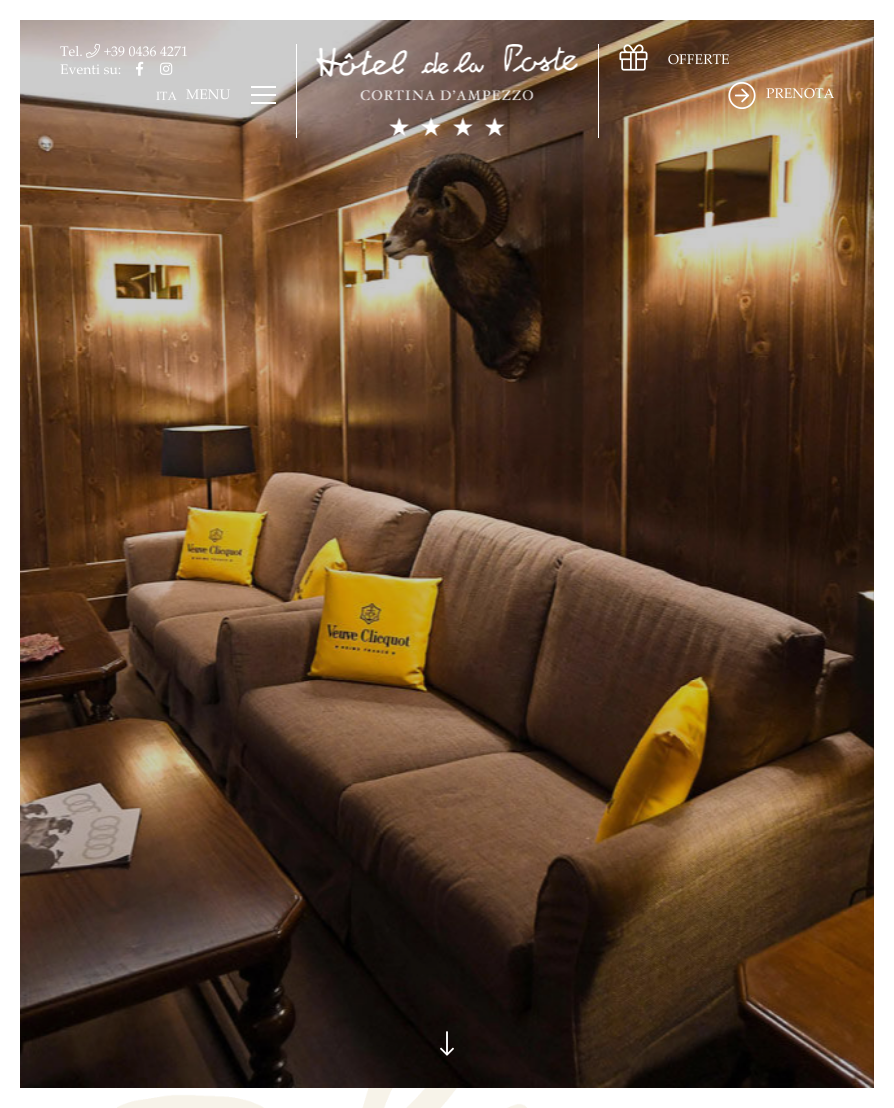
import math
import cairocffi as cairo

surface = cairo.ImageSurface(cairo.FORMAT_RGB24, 894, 1108)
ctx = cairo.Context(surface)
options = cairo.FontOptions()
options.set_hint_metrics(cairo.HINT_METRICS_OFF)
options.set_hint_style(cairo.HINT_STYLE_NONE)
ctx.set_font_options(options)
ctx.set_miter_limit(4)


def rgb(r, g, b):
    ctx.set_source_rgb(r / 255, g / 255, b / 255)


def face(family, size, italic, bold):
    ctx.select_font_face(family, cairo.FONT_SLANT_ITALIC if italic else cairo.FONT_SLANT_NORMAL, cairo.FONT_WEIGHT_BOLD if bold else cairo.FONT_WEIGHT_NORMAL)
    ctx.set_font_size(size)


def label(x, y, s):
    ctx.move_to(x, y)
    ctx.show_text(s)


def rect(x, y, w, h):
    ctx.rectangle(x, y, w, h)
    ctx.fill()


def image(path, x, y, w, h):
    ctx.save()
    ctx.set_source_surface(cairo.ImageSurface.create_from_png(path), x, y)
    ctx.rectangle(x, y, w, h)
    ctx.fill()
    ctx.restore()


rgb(255, 255, 255)
ctx.paint()
image('image1.png', 872, 20, 2, 1068)
image('image0.png', 20, 20, 854, 1068)
ctx.set_source_rgba(0, 0, 0, 0.2)
rect(20, 20, 854, 1068)
image('image2.png', 440, 1031, 14, 25)
face('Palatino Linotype', 14, 0, 0)
rgb(255, 255, 255)
label(60, 56, 'Tel.')
image('image3.png', 86, 43, 14, 15)
label(104, 56, '+39 0436 4271')
label(60, 74, 'Eventi su:')
image('image4.png', 136, 61, 8, 15)
image('image5.png', 160, 62, 13, 13)
rect(598, 44, 1, 94)
rect(296, 44, 1, 94)
image('image6.png', 316, 44, 262, 92)
image('image7.png', 619, 44, 29, 27)
label(668, 64, 'OFFERTE')
face('Palatino Linotype', 12, 0, 0)
label(156, 100, 'ITA')
face('Palatino Linotype', 14, 0, 0)
label(186, 99, 'MENU')
rect(251, 86, 25, 2)
rect(251, 94, 25, 2)
rect(251, 102, 25, 2)
image('image8.png', 728, 82, 28, 28)
label(766, 98, 'PRENOTA')
image('image9.png', 117, 1088, 410, 20)
surface.write_to_png('render.png')
